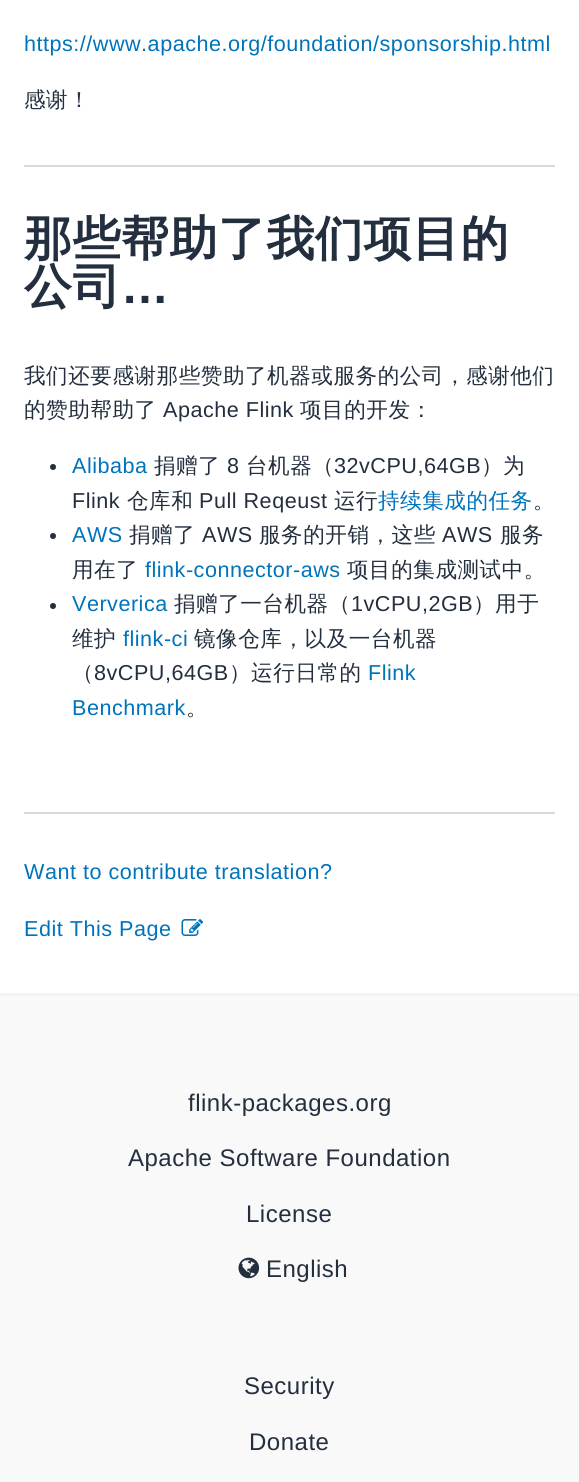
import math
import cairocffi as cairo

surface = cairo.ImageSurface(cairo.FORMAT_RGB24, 579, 1482)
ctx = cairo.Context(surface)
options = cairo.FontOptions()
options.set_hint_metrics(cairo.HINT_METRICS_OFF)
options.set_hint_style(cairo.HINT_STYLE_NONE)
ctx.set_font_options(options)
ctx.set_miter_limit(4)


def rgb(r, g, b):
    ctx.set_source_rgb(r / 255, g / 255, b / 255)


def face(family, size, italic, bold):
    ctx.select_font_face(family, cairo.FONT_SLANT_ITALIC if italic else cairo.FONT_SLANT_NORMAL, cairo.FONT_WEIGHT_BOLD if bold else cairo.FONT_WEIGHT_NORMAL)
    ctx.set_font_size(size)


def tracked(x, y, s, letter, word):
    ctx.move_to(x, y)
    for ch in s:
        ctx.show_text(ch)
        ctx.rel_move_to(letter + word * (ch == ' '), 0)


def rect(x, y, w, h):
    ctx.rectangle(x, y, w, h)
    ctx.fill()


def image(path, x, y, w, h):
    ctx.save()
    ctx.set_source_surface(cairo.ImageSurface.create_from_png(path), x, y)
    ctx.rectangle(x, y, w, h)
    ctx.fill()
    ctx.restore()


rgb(255, 255, 255)
ctx.paint()
face('Liberation Sans', 21.6, 0, 0)
rgb(0, 115, 187)
tracked(24, 51, 'https://www.apache.org/foundation/sponsorship.html', 0.5, 0)
face('WenQuanYi Zen Hei Medium', 21.6, 0, 0)
rgb(35, 47, 62)
tracked(24, 107, '感谢！', 0.5, 0)
rgb(213, 219, 219)
rect(24, 165, 531, 2)
face('WenQuanYi Zen Hei', 48, 0, 1)
rgb(35, 47, 62)
tracked(24, 255, '那些帮助了我们项目的', 0.5, 0)
tracked(24, 303, '公司', 0.5, 0)
face('Liberation Sans', 48, 0, 1)
tracked(121, 303, '…', 0.5, 0)
face('WenQuanYi Zen Hei Medium', 21.6, 0, 0)
tracked(24, 383, '我们还要感谢那些赞助了机器或服务的公司，感谢他们', 0.5, 0)
tracked(24, 417, '的赞助帮助了', 0.5, 0)
face('Liberation Sans', 21.6, 0, 0)
tracked(163, 417, 'Apache Flink', 0.5, 0)
face('WenQuanYi Zen Hei Medium', 21.6, 0, 0)
tracked(300, 417, '项目的开发：', 0.5, 0)
ctx.new_path()
ctx.arc(53, 467, 3, 0, 2 * math.pi)
ctx.fill()
face('Liberation Sans', 21.6, 0, 0)
rgb(0, 115, 187)
tracked(72, 473, 'Alibaba', 0.5, 0)
face('WenQuanYi Zen Hei Medium', 21.6, 0, 0)
rgb(35, 47, 62)
tracked(154, 473, '捐赠了', 0.5, 0)
face('Liberation Sans', 21.6, 0, 0)
tracked(227, 473, '8', 0.5, 0)
face('WenQuanYi Zen Hei Medium', 21.6, 0, 0)
tracked(246, 473, '台机器（', 0.5, 0)
face('Liberation Sans', 21.6, 0, 0)
tracked(334, 473, '32vCPU,64GB', 0.5, 0)
face('WenQuanYi Zen Hei Medium', 21.6, 0, 0)
tracked(481, 473, '）为', 0.5, 0)
face('Liberation Sans', 21.6, 0, 0)
tracked(72, 508, 'Flink', 0.5, 0)
face('WenQuanYi Zen Hei Medium', 21.6, 0, 0)
tracked(127, 508, '仓库和', 0.5, 0)
face('Liberation Sans', 21.6, 0, 0)
tracked(199, 508, 'Pull Reqeust', 0.5, 0)
face('WenQuanYi Zen Hei Medium', 21.6, 0, 0)
tracked(334, 508, '运行', 0.5, 0)
rgb(0, 115, 187)
tracked(378, 508, '持续集成的任务', 0.5, 0)
rgb(35, 47, 62)
tracked(533, 508, '。', 0.5, 0)
ctx.new_path()
ctx.arc(53, 536, 3, 0, 2 * math.pi)
ctx.fill()
face('Liberation Sans', 21.6, 0, 0)
rgb(0, 115, 187)
tracked(72, 542, 'AWS', 0.5, 0)
face('WenQuanYi Zen Hei Medium', 21.6, 0, 0)
rgb(35, 47, 62)
tracked(129, 542, '捐赠了', 0.5, 0)
face('Liberation Sans', 21.6, 0, 0)
tracked(202, 542, 'AWS', 0.5, 0)
face('WenQuanYi Zen Hei Medium', 21.6, 0, 0)
tracked(259, 542, '服务的开销，这些', 0.5, 0)
face('Liberation Sans', 21.6, 0, 0)
tracked(442, 542, 'AWS', 0.5, 0)
face('WenQuanYi Zen Hei Medium', 21.6, 0, 0)
tracked(500, 542, '服务', 0.5, 0)
tracked(72, 577, '用在了', 0.5, 0)
face('Liberation Sans', 21.6, 0, 0)
rgb(0, 115, 187)
tracked(145, 577, 'flink-connector-aws', 0.5, 0)
face('WenQuanYi Zen Hei Medium', 21.6, 0, 0)
rgb(35, 47, 62)
tracked(347, 577, '项目的集成测试中。', 0.5, 0)
ctx.new_path()
ctx.arc(53, 606, 3, 0, 2 * math.pi)
ctx.fill()
face('Liberation Sans', 21.6, 0, 0)
rgb(0, 115, 187)
tracked(72, 611, 'Ververica', 0.5, 0)
face('WenQuanYi Zen Hei Medium', 21.6, 0, 0)
rgb(35, 47, 62)
tracked(174, 611, '捐赠了一台机器（', 0.5, 0)
face('Liberation Sans', 21.6, 0, 0)
tracked(351, 611, '1vCPU,2GB', 0.5, 0)
face('WenQuanYi Zen Hei Medium', 21.6, 0, 0)
tracked(473, 611, '）用于', 0.5, 0)
tracked(72, 646, '维护', 0.5, 0)
face('Liberation Sans', 21.6, 0, 0)
rgb(0, 115, 187)
tracked(123, 646, 'flink-ci', 0.5, 0)
face('WenQuanYi Zen Hei Medium', 21.6, 0, 0)
rgb(35, 47, 62)
tracked(194, 646, '镜像仓库，以及一台机器', 0.5, 0)
tracked(72, 680, '（', 0.5, 0)
face('Liberation Sans', 21.6, 0, 0)
tracked(94, 680, '8vCPU,64GB', 0.5, 0)
face('WenQuanYi Zen Hei Medium', 21.6, 0, 0)
tracked(229, 680, '）运行日常的', 0.5, 0)
face('Liberation Sans', 21.6, 0, 0)
rgb(0, 115, 187)
tracked(368, 680, 'Flink', 0.5, 0)
tracked(72, 715, 'Benchmark', 0.5, 0)
face('WenQuanYi Zen Hei Medium', 21.6, 0, 0)
rgb(35, 47, 62)
tracked(186, 715, '。', 0.5, 0)
rgb(213, 219, 219)
rect(24, 812, 531, 2)
face('Liberation Sans', 21.6, 0, 0)
rgb(0, 115, 187)
tracked(24, 879, 'Want to contribute translation?', 0.5, 0)
tracked(24, 936, 'Edit This Page', 0.5, 0)
image('image0.png', 181, 919, 22, 17)
rgb(249, 249, 249)
rect(0, 996, 579, 486)
rgb(242, 243, 243)
rect(0, 993, 579, 3)
face('Liberation Sans', 24, 0, 0)
rgb(35, 47, 62)
tracked(188, 1111, 'flink-packages.org', 0.5, 0)
tracked(128, 1166, 'Apache Software Foundation', 0.5, 0)
tracked(246, 1222, 'License', 0.5, 0)
image('image1.png', 238, 1257, 22, 22)
tracked(266, 1277, 'English', 0.5, 0)
tracked(244, 1394, 'Security', 0.5, 0)
tracked(249, 1450, 'Donate', 0.5, 0)
surface.write_to_png('render.png')
